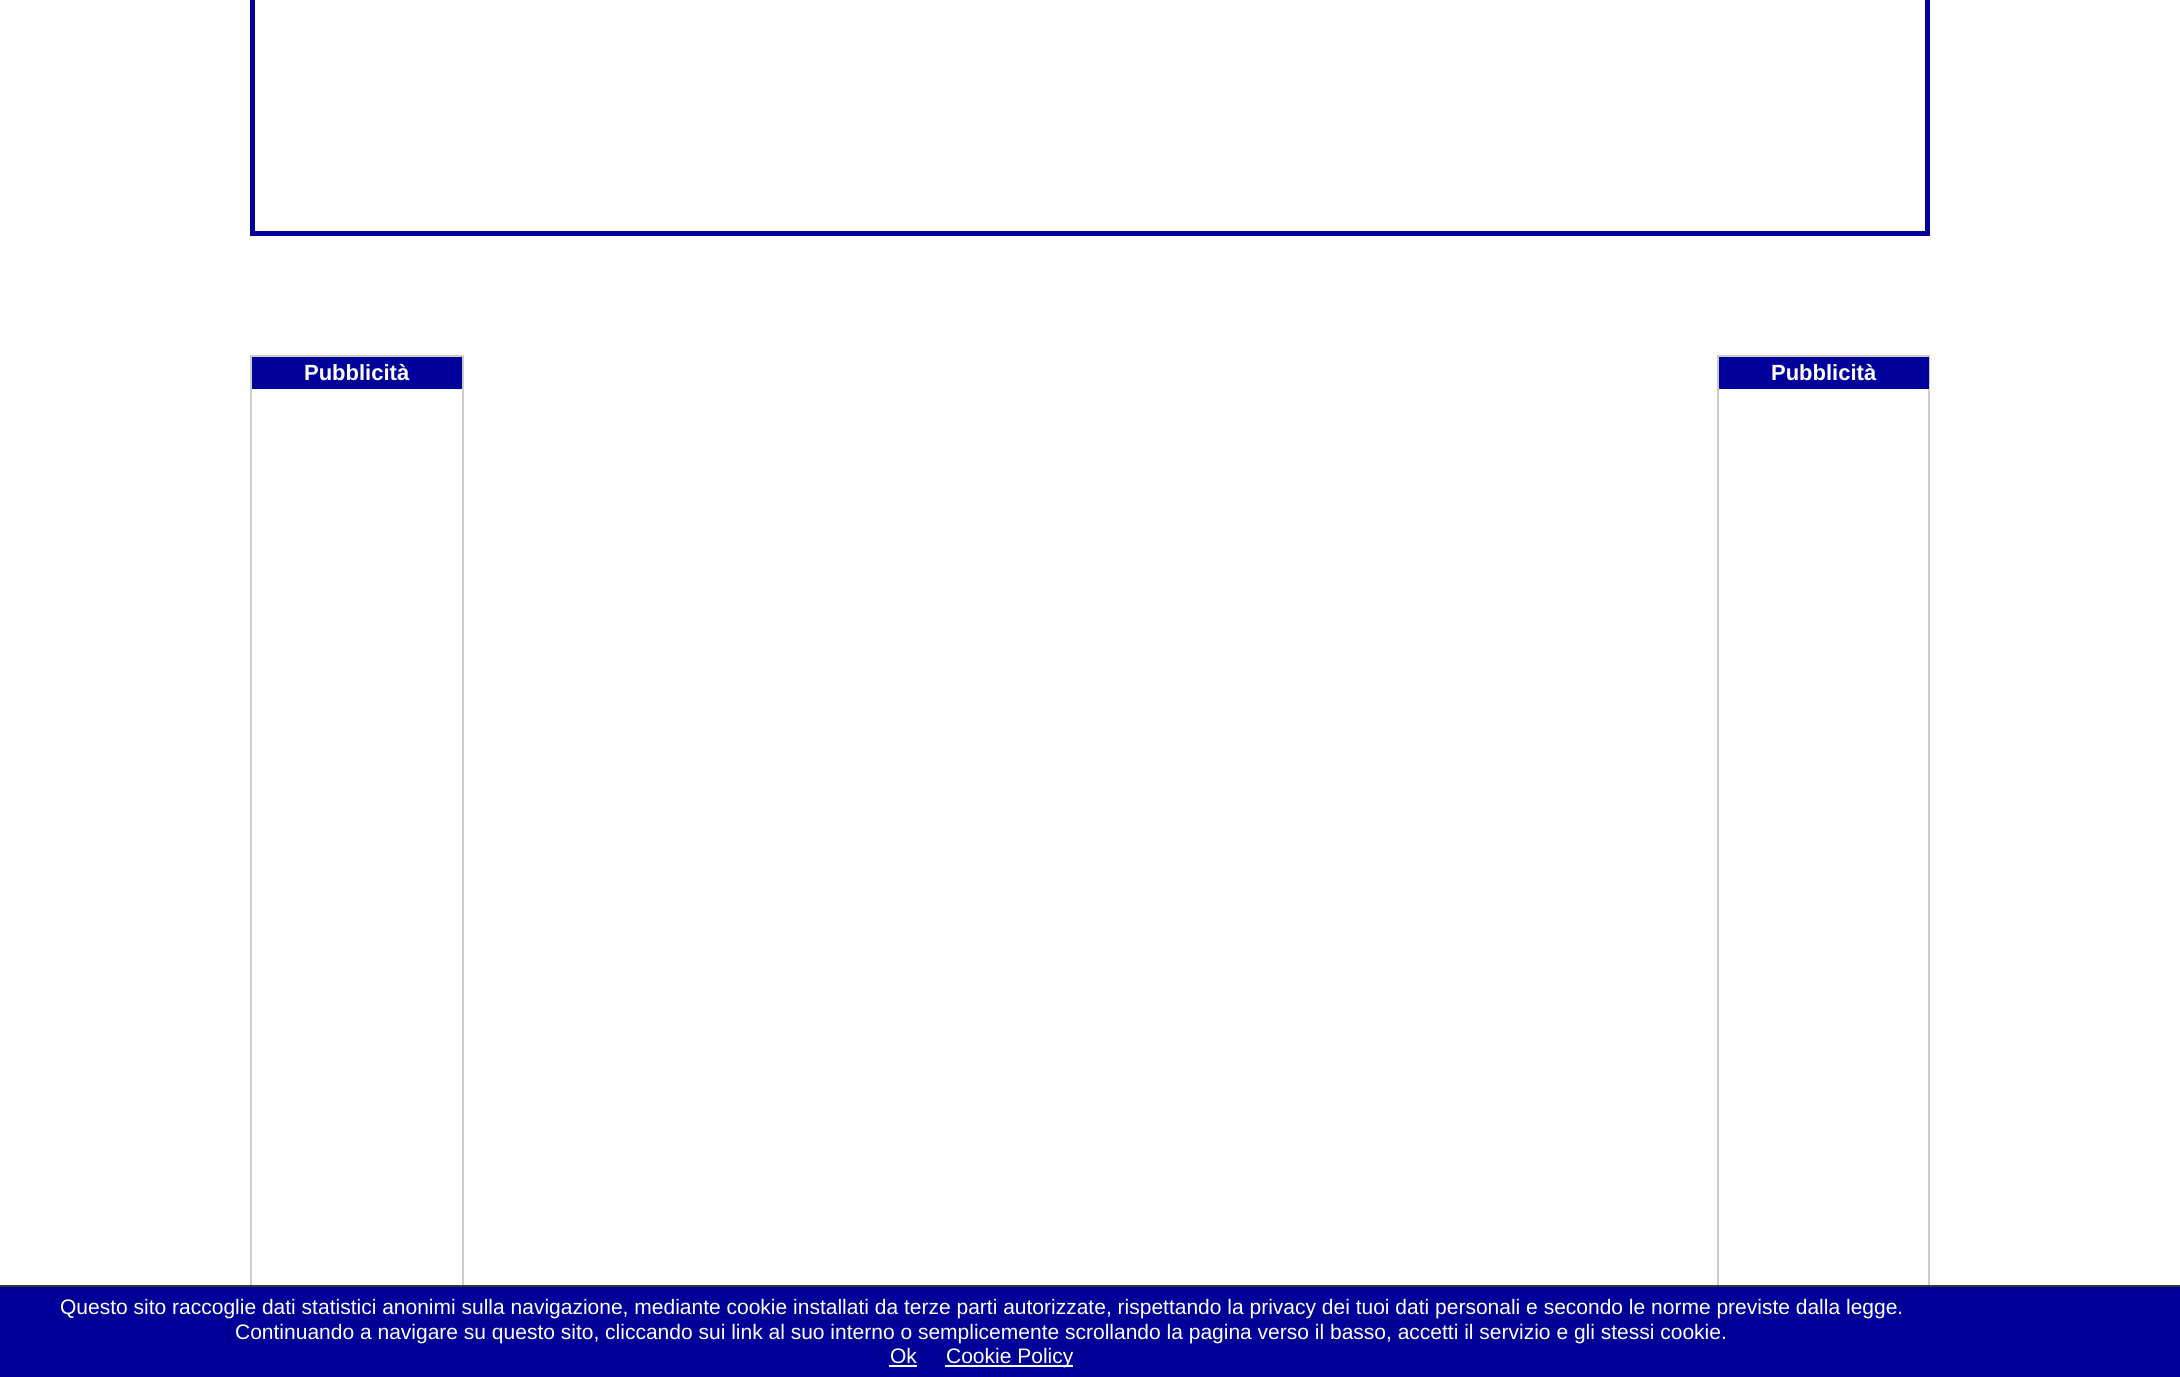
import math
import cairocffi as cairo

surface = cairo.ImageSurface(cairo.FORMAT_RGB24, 2180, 1377)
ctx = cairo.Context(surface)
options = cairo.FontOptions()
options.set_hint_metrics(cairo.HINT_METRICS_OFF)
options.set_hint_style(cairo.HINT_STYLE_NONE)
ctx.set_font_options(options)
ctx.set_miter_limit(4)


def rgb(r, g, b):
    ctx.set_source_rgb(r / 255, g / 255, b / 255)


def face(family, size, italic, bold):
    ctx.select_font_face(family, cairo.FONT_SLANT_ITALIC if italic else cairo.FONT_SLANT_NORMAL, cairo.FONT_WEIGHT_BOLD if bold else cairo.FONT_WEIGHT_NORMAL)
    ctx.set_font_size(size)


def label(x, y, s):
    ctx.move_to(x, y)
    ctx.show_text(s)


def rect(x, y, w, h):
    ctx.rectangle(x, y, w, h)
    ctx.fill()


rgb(255, 255, 255)
ctx.paint()
ctx.rectangle(252.5, -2.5, 1675, 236)
rgb(1, 0, 154)
ctx.set_line_width(5)
ctx.stroke()
ctx.rectangle(251, 356, 212, 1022)
rgb(204, 204, 204)
ctx.set_line_width(2)
ctx.stroke()
rgb(1, 0, 154)
rect(252, 357, 210, 32)
face('Liberation Sans', 22, 0, 1)
rgb(255, 255, 255)
label(304, 380, 'Pubblicità')
ctx.rectangle(1718, 356, 211, 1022)
rgb(204, 204, 204)
ctx.stroke()
rgb(1, 0, 154)
rect(1719, 357, 210, 32)
rgb(255, 255, 255)
label(1771, 380, 'Pubblicità')
rgb(0, 0, 152)
rect(0, 1287, 2180, 90)
rgb(51, 51, 51)
rect(0, 1285, 2180, 2)
face('Liberation Sans', 21, 0, 0)
rgb(255, 255, 255)
label(60, 1314, 'Questo sito raccoglie dati statistici anonimi sulla navigazione, mediante cookie installati da terze parti autorizzate, rispettando la privacy dei tuoi dati personali e secondo le norme previste dalla legge.')
label(235, 1339, 'Continuando a navigare su questo sito, cliccando sui link al suo interno o semplicemente scrollando la pagina verso il basso, accetti il servizio e gli stessi cookie.')
label(890, 1363, 'Ok')
rect(889, 1365, 28, 2)
rect(945, 1365, 128, 2)
label(946, 1363, 'Cookie Policy')
surface.write_to_png('render.png')
